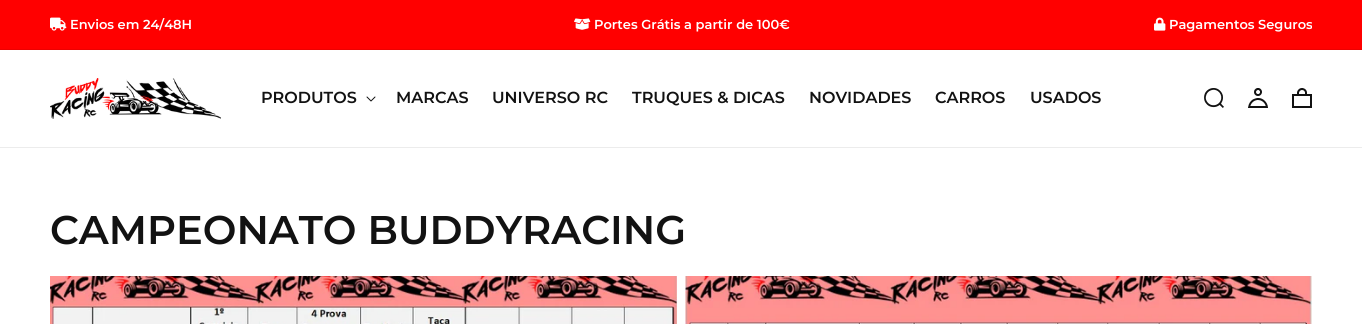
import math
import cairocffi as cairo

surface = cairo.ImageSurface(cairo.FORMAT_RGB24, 1362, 324)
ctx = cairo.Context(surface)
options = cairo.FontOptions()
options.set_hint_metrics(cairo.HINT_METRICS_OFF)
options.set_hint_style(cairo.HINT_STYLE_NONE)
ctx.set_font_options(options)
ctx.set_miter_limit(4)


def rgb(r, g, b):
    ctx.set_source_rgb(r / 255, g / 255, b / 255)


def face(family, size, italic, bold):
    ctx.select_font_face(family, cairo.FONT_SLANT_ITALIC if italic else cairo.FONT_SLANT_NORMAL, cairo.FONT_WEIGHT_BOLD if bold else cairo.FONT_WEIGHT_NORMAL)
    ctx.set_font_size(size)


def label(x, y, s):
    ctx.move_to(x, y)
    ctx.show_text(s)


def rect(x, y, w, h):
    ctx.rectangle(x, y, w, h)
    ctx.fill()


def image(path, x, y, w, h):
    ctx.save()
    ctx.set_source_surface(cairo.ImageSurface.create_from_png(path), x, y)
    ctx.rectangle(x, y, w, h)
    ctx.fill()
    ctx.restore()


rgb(255, 255, 255)
ctx.paint()
rgb(255, 0, 0)
rect(0, 0, 1362, 49)
rgb(236, 1, 1)
rect(0, 49, 1362, 1)
image('image0.png', 50, 17, 17, 14)
face('Montserrat SemiBold', 13, 0, 0)
rgb(255, 255, 255)
label(70, 29, 'Envios em 24/48H')
image('image1.png', 574, 18, 17, 12)
label(594, 29, 'Portes Grátis a partir de 100€')
image('image2.png', 1154, 17, 12, 14)
ctx.save()
ctx.rectangle(50, 0, 1262, 49)
ctx.clip()
label(1169, 29, 'Pagamentos Seguros')
ctx.restore()
rgb(236, 236, 236)
rect(0, 147, 1362, 1)
image('image3.png', 50, 78, 171, 41)
face('Montserrat SemiBold', 16, 0, 0)
rgb(18, 18, 18)
label(261, 103, 'PRODUTOS')
image('image4.png', 366, 96, 10, 6)
label(396, 103, 'MARCAS')
label(492, 103, 'UNIVERSO RC')
label(632, 103, 'TRUQUES & DICAS')
label(809, 103, 'NOVIDADES')
label(935, 103, 'CARROS')
label(1030, 103, 'USADOS')
image('image5.png', 1204, 88, 20, 20)
image('image6.png', 1248, 88, 20, 20)
image('image7.png', 1292, 88, 20, 20)
face('Montserrat SemiBold', 40, 0, 0)
label(50, 244, 'CAMPEONATO BUDDYRACING')
image('image8.png', 50, 276, 627, 48)
image('image9.png', 685, 276, 627, 48)
surface.write_to_png('render.png')
